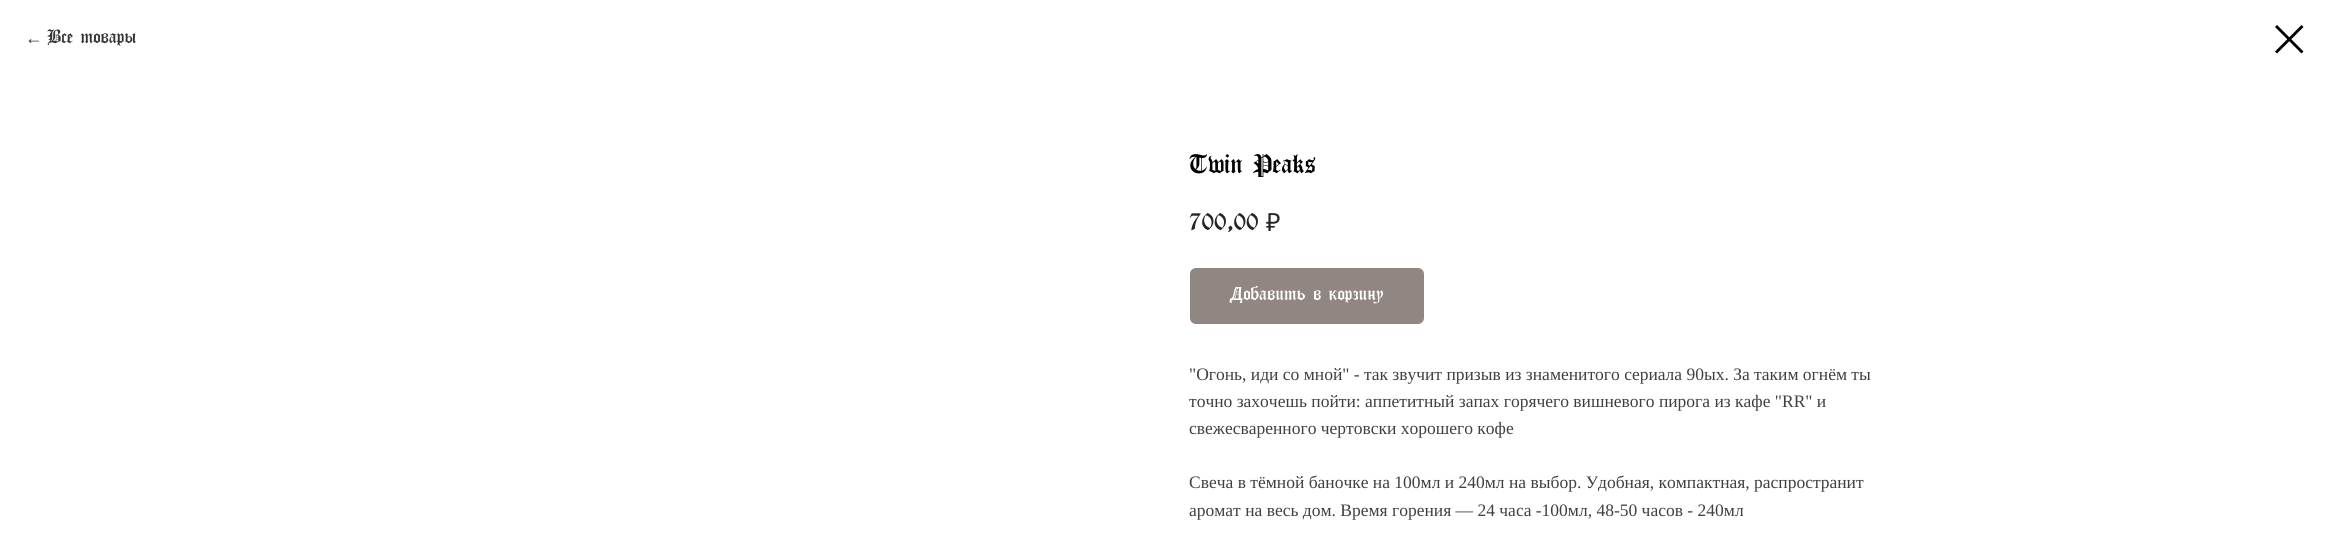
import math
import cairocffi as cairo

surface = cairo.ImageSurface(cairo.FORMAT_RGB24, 2328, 554)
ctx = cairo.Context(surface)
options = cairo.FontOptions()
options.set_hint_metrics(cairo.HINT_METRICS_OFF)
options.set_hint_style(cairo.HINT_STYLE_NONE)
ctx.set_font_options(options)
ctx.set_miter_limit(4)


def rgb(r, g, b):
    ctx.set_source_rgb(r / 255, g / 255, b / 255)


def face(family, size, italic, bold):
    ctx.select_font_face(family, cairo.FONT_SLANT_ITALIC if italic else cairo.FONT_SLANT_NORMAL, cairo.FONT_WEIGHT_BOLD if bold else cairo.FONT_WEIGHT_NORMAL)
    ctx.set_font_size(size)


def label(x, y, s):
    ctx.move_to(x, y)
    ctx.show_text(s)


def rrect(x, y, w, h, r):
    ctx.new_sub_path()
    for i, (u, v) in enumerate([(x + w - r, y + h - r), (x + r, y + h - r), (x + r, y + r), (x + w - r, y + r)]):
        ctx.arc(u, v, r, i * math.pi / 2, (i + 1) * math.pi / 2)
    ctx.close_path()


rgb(255, 255, 255)
ctx.paint()
face('Liberation Sans', 17.5, 0, 0)
rgb(51, 51, 51)
label(25, 44, '←')
face('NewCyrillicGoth', 17.5, 0, 0)
label(47, 43, 'Все товары')
rgb(0, 0, 0)
ctx.set_fill_rule(cairo.FILL_RULE_EVEN_ODD)
ctx.new_path()
ctx.move_to(2275, 27)
ctx.line_to(2277, 25)
ctx.line_to(2303.5, 51.5)
ctx.line_to(2301.5, 53.5)
ctx.close_path()
ctx.fill()
ctx.new_path()
ctx.move_to(2301.5, 25)
ctx.line_to(2303.5, 27)
ctx.line_to(2277, 53.5)
ctx.line_to(2275, 51.5)
ctx.close_path()
ctx.fill()
face('NewCyrillicGoth', 25, 0, 0)
label(1189, 173, 'Twin Peaks')
rgb(37, 37, 37)
label(1189, 230, '700,00')
face('Noto Sans', 25, 0, 0)
label(1266, 231, '₽')
rgb(144, 135, 131)
rrect(1190, 268, 234, 56, 6)
ctx.fill()
face('NewCyrillicGoth', 17.5, 0, 0)
rgb(255, 255, 255)
label(1229, 300, 'Добавить в корзину')
face('Liberation Serif', 17.5, 0, 0)
rgb(64, 64, 64)
label(1189, 380, '"Огонь, иди со мной" - так звучит призыв из знаменитого сериала 90ых. За таким огнём ты')
label(1189, 407, 'точно захочешь пойти: аппетитный запах горячего вишневого пирога из кафе "RR" и')
label(1189, 434, 'свежесваренного чертовски хорошего кофе')
label(1189, 488, 'Свеча в тёмной баночке на 100мл и 240мл на выбор. Удобная, компактная, распространит')
label(1189, 516, 'аромат на весь дом. Время горения — 24 часа -100мл, 48-50 часов - 240мл')
surface.write_to_png('render.png')
